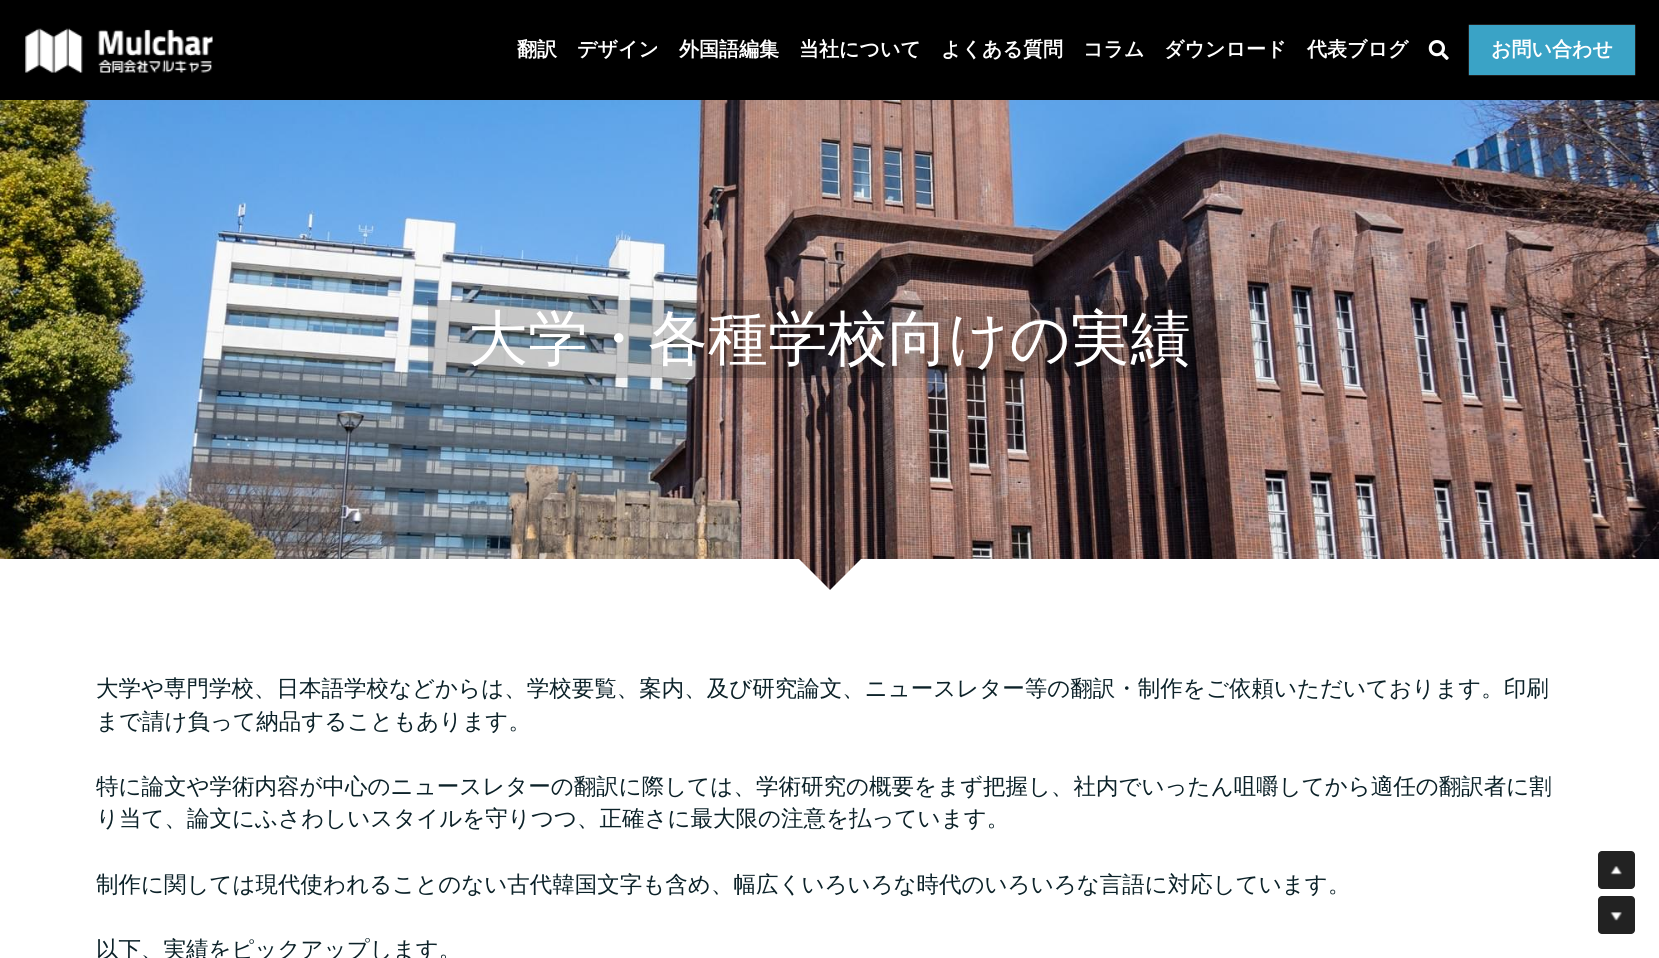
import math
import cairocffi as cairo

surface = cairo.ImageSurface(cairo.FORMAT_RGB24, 1659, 958)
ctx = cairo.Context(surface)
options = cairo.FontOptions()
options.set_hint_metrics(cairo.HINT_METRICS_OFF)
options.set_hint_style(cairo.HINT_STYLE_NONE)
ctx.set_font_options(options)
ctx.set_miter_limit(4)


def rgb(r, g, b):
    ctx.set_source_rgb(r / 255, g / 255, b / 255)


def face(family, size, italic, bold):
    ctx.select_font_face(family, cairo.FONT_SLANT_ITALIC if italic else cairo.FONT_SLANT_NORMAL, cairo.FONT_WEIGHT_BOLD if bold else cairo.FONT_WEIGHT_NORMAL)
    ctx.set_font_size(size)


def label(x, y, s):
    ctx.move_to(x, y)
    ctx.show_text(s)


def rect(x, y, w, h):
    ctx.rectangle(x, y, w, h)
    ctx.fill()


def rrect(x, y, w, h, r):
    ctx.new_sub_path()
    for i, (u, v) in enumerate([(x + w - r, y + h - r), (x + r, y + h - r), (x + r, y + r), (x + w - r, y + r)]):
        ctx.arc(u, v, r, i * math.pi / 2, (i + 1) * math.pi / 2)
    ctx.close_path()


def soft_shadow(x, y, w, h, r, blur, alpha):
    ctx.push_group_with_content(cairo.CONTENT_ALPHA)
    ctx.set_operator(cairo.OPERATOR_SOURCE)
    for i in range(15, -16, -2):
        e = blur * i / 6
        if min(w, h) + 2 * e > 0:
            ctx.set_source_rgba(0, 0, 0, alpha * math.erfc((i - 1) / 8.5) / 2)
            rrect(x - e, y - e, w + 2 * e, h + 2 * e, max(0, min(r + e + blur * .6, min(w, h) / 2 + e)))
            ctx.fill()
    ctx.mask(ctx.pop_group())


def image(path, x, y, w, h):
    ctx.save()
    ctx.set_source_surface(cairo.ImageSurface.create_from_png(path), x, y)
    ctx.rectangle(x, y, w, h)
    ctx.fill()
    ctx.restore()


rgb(255, 255, 255)
ctx.paint()
rgb(0, 0, 0)
rect(0, 0, 1659, 100)
image('image0.png', 25, 28, 188, 45)
face('WenQuanYi Zen Hei', 20, 0, 1)
rgb(255, 255, 255)
label(517, 56, '翻訳')
label(577, 56, 'デザイン')
label(679, 56, '外国語編集')
label(799, 56, '当社について')
label(941, 56, 'よくある質問')
label(1083, 56, 'コラム')
label(1164, 56, 'ダウンロード')
label(1307, 56, '代表ブログ')
image('image1.png', 1428, 40, 21, 20)
rgb(255, 255, 255)
soft_shadow(1469, 25, 166, 50, 0, 0.5, 0.5)
rgb(58, 163, 198)
rect(1469, 25, 166, 50)
rgb(255, 255, 255)
label(1491, 56, 'お問い合わせ')
image('image2.png', 0, 100, 1659, 490)
ctx.set_source_rgba(0, 0, 0, 0.2)
rect(428, 300, 803, 78)
face('WenQuanYi Zen Hei Medium', 60, 0, 0)
rgb(255, 255, 255)
label(468, 359, '大学・各種学校向けの実績')
ctx.new_path()
ctx.move_to(830, 590)
ctx.line_to(0, 590)
ctx.line_to(31, 559)
ctx.line_to(799, 559)
ctx.close_path()
ctx.fill()
rect(0, 559, 31, 31)
rect(1629, 559, 30, 30)
ctx.new_path()
ctx.move_to(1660, 590)
ctx.line_to(830, 590)
ctx.line_to(861, 559)
ctx.line_to(1629, 559)
ctx.close_path()
ctx.fill()
face('WenQuanYi Zen Hei Medium', 22.5, 0, 0)
rgb(11, 33, 40)
label(96, 696, '大学や専門学校、日本語学校などからは、学校要覧、案内、及び研究論文、ニュースレター等の翻訳・制作をご依頼いただいております。印刷')
label(96, 729, 'まで請け負って納品することもあります。')
label(96, 794, '特に論文や学術内容が中心のニュースレターの翻訳に際しては、学術研究の概要をまず把握し、社内でいったん咀嚼してから適任の翻訳者に割')
label(96, 826, 'り当て、論文にふさわしいスタイルを守りつつ、正確さに最大限の注意を払っています。')
label(96, 892, '制作に関しては現代使われることのない古代韓国文字も含め、幅広くいろいろな時代のいろいろな言語に対応しています。')
label(96, 957, '以下、実績をピックアップします。')
rgb(34, 34, 34)
rrect(1598, 851, 37, 38, 4)
ctx.fill()
image('image3.png', 1610, 866, 12, 9)
rrect(1598, 896, 37, 38, 4)
ctx.fill()
image('image4.png', 1610, 912, 12, 9)
surface.write_to_png('render.png')
